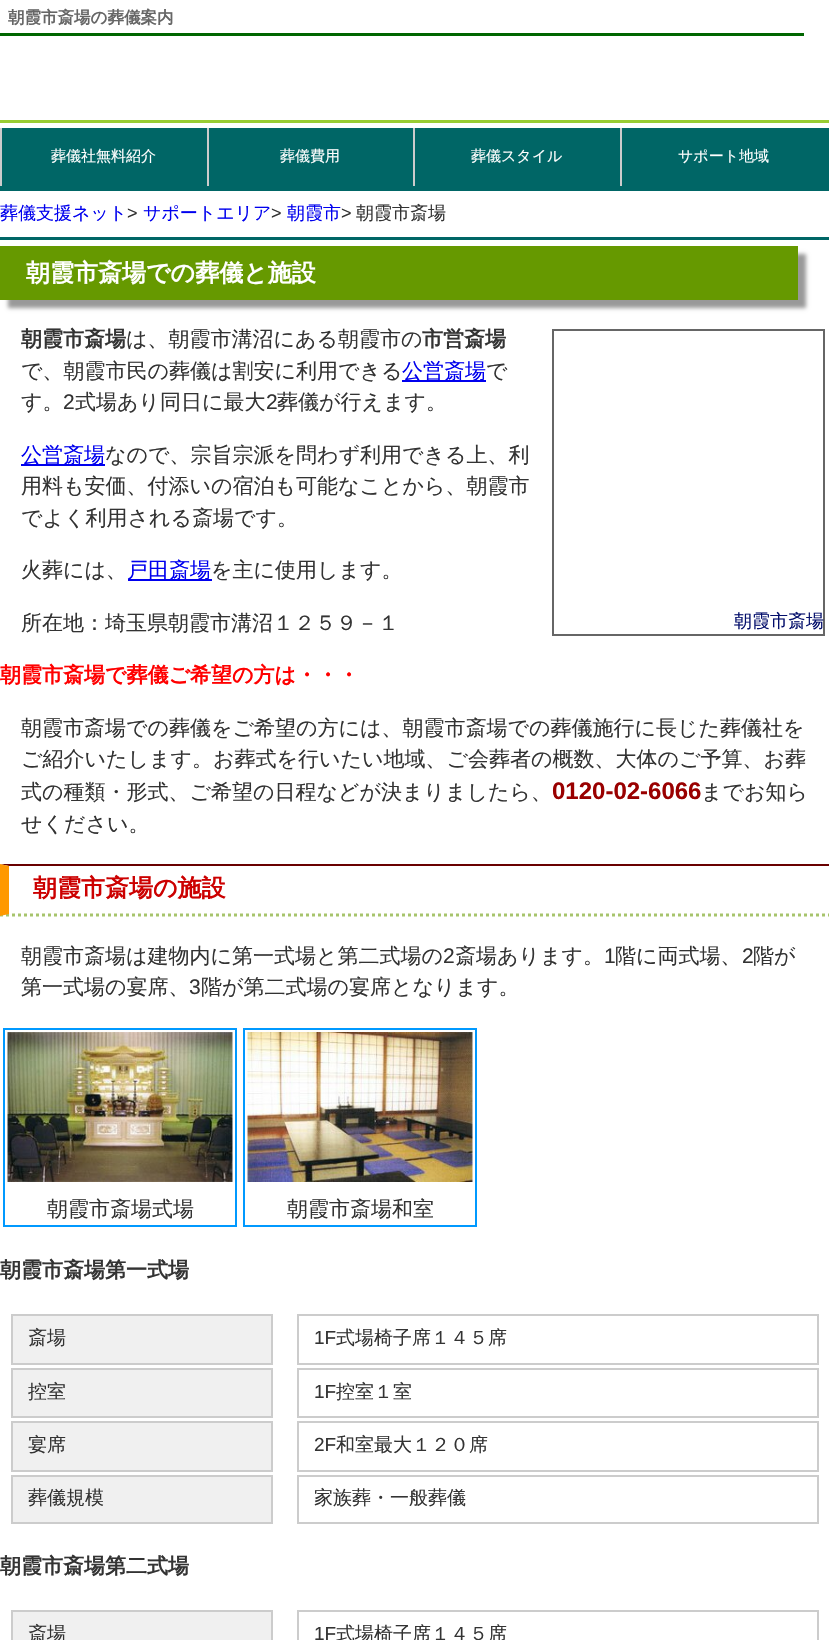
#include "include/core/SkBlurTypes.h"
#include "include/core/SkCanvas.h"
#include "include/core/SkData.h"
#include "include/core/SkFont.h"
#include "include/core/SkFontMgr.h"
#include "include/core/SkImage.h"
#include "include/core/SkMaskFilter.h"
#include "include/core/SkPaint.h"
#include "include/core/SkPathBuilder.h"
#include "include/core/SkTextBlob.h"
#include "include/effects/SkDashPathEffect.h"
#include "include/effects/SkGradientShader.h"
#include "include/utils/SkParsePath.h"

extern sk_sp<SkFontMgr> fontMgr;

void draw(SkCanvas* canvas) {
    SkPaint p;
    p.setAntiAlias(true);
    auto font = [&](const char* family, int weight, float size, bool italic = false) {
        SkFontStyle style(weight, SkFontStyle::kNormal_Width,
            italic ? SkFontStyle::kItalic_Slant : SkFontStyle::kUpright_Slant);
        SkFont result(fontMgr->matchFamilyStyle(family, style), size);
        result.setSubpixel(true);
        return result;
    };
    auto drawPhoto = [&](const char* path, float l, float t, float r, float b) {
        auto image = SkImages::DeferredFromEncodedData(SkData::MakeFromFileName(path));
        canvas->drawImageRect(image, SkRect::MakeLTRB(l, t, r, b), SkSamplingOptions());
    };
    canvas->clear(0xFFFFFFFF);
    p.setColor(0xFF006600);
    canvas->drawRect(SkRect::MakeLTRB(0, 33, 804, 36), p);
    auto font1 = font("WenQuanYi Zen Hei", 700, 16.5f);
    p.setColor(0xFF666666);
    canvas->drawString("朝霞市斎場の葬儀案内", 8, 23, font1, p);
    {
        const struct { float l, t, r, b; SkColor color; } items[] = {
            {0, 120, 829, 123, 0xFF99CC33},
            {0, 128, 829, 191, 0xFF006666},
            {0, 128, 2, 186, 0xFFCCCCCC},
        };
        for (auto [l, t, r, b, color] : items) {
            p.setColor(color);
            canvas->drawRect(SkRect::MakeLTRB(l, t, r, b), p);
        }
    }
    auto font2 = font("WenQuanYi Zen Hei", 500, 15);
    p.setColor(0xFFFFFFFF);
    canvas->drawString("葬儀社無料紹介", 51, 161, font2, p);
    p.setColor(0xFFCCCCCC);
    canvas->drawRect(SkRect::MakeLTRB(207, 128, 209, 186), p);
    p.setColor(0xFFFFFFFF);
    canvas->drawString("葬儀費用", 280, 161, font2, p);
    p.setColor(0xFFCCCCCC);
    canvas->drawRect(SkRect::MakeLTRB(413, 128, 415, 186), p);
    p.setColor(0xFFFFFFFF);
    canvas->drawString("葬儀スタイル", 471, 161, font2, p);
    p.setColor(0xFFCCCCCC);
    canvas->drawRect(SkRect::MakeLTRB(620, 128, 622, 186), p);
    p.setColor(0xFFFFFFFF);
    canvas->drawString("サポート地域", 678, 161, font2, p);
    auto font3 = font("WenQuanYi Zen Hei", 500, 18);
    p.setColor(0xFF0000EE);
    canvas->drawString("葬儀支援ネット", 0, 219, font3, p);
    auto font4 = font("Liberation Sans", 400, 18);
    p.setColor(0xFF333333);
    canvas->drawString(">", 127, 219, font4, p);
    p.setColor(0xFF0000EE);
    canvas->drawString("サポートエリア", 143, 219, font3, p);
    p.setColor(0xFF333333);
    canvas->drawString(">", 271, 219, font4, p);
    p.setColor(0xFF0000EE);
    canvas->drawString("朝霞市", 287, 219, font3, p);
    p.setColor(0xFF333333);
    canvas->drawString(">", 341, 219, font4, p);
    canvas->drawString("朝霞市斎場", 356, 219, font3, p);
    p.setColor(0xFF006666);
    canvas->drawRect(SkRect::MakeLTRB(0, 237, 829, 240), p);
    p.setColor(0xFF999999);
    p.setMaskFilter(SkMaskFilter::MakeBlur(kNormal_SkBlurStyle, 2));
    canvas->drawRect(SkRect::MakeLTRB(8, 254, 806, 308), p);
    p.setMaskFilter(nullptr);
    p.setColor(0xFF669900);
    canvas->drawRect(SkRect::MakeLTRB(0, 246, 798, 300), p);
    auto font5 = font("WenQuanYi Zen Hei", 700, 24);
    p.setColor(0xFFFFFFFF);
    canvas->drawString("朝霞市斎場での葬儀と施設", 26, 281, font5, p);
    auto font6 = font("WenQuanYi Zen Hei", 700, 21);
    p.setColor(0xFF333333);
    canvas->drawString("朝霞市斎場", 21, 346, font6, p);
    auto font7 = font("WenQuanYi Zen Hei", 500, 21);
    canvas->drawString("は、朝霞市溝沼にある朝霞市の", 126, 346, font7, p);
    canvas->drawString("市営斎場", 422, 346, font6, p);
    canvas->drawString("で、朝霞市民の葬儀は割安に利用できる", 21, 378, font7, p);
    p.setColor(0xFF0000EE);
    canvas->drawRect(SkRect::MakeLTRB(402, 380, 486, 382), p);
    canvas->drawString("公営斎場", 402, 378, font7, p);
    p.setColor(0xFF333333);
    canvas->drawString("で", 486, 378, font7, p);
    canvas->drawString("す。", 21, 409, font7, p);
    auto font8 = font("Liberation Sans", 400, 21);
    canvas->drawString("2", 63, 409, font8, p);
    canvas->drawString("式場あり同日に最大", 75, 409, font7, p);
    canvas->drawString("2", 266, 409, font8, p);
    canvas->drawString("葬儀が行えます。", 277, 409, font7, p);
    p.setColor(0xFF0000EE);
    canvas->drawRect(SkRect::MakeLTRB(21, 464, 105, 466), p);
    canvas->drawString("公営斎場", 21, 462, font7, p);
    p.setColor(0xFF333333);
    {
        const struct { const char* s; float x, y; } items[] = {
            {"なので、宗旨宗派を問わず利用できる上、利", 105, 462},
            {"用料も安価、付添いの宿泊も可能なことから、朝霞市", 21, 493},
            {"でよく利用される斎場です。", 21, 525},
            {"火葬には、", 21, 577},
        };
        for (auto [s, x, y] : items) {
            canvas->drawString(s, x, y, font7, p);
        }
    }
    p.setColor(0xFF0000EE);
    canvas->drawRect(SkRect::MakeLTRB(128, 579, 212, 581), p);
    canvas->drawString("戸田斎場", 127, 577, font7, p);
    p.setColor(0xFF333333);
    canvas->drawString("を主に使用します。", 211, 577, font7, p);
    canvas->drawString("所在地：埼玉県朝霞市溝沼１２５９－１", 21, 630, font7, p);
    p.setStyle(SkPaint::kStroke_Style);
    p.setStrokeWidth(2);
    p.setColor(0xFF666666);
    canvas->drawRect(SkRect::MakeLTRB(553, 330, 824, 635), p);
    p.setStyle(SkPaint::kFill_Style);
    p.setColor(0xFF030E6B);
    canvas->drawString("朝霞市斎場", 734, 627, font3, p);
    p.setColor(0xFFFF0000);
    canvas->drawString("朝霞市斎場で葬儀ご希望の方は・・・", 0, 682, font6, p);
    p.setColor(0xFF333333);
    {
        const struct { const char* s; float x, y; } items[] = {
            {"朝霞市斎場での葬儀をご希望の方には、朝霞市斎場での葬儀施行に長じた葬儀社を", 21, 735},
            {"ご紹介いたします。お葬式を行いたい地域、ご会葬者の概数、大体のご予算、お葬", 21, 766},
            {"式の種類・形式、ご希望の日程などが決まりましたら、", 21, 799},
        };
        for (auto [s, x, y] : items) {
            canvas->drawString(s, x, y, font7, p);
        }
    }
    auto font9 = font("Liberation Sans", 700, 24);
    p.setColor(0xFF990000);
    canvas->drawString("0120-02-6066", 552, 799, font9, p);
    p.setColor(0xFF333333);
    canvas->drawString("までお知ら", 701, 799, font7, p);
    canvas->drawString("せください。", 21, 831, font7, p);
    p.setColor(0xFF690000);
    canvas->drawPath(SkPathBuilder().moveTo(0, 864).lineTo(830, 864).lineTo(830, 866).lineTo(9, 866).close().detach(), p);
    p.setStyle(SkPaint::kStroke_Style);
    p.setStrokeWidth(3);
    p.setColor(0xFFA7C46C);
    p.setPathEffect(SkDashPathEffect::Make({{3, 3}}, 0));
    canvas->drawPath(SkPathBuilder().moveTo(0, 915).lineTo(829.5f, 915).detach(), p);
    p.setPathEffect(nullptr);
    p.setStyle(SkPaint::kFill_Style);
    p.setColor(0xFFFF9900);
    canvas->drawPath(SkPathBuilder().moveTo(0, 916).lineTo(0, 864).lineTo(9, 866).lineTo(9, 914).close().detach(), p);
    p.setColor(0xFFCC0000);
    canvas->drawString("朝霞市斎場の施設", 33, 896, font5, p);
    p.setColor(0xFF333333);
    canvas->drawString("朝霞市斎場は建物内に第一式場と第二式場の", 21, 963, font7, p);
    canvas->drawString("2", 443, 963, font8, p);
    canvas->drawString("斎場あります。", 455, 963, font7, p);
    canvas->drawString("1", 604, 963, font8, p);
    canvas->drawString("階に両式場、", 615, 963, font7, p);
    canvas->drawString("2", 742, 963, font8, p);
    canvas->drawString("階が", 753, 963, font7, p);
    canvas->drawString("第一式場の宴席、", 21, 994, font7, p);
    canvas->drawString("3", 189, 994, font8, p);
    canvas->drawString("階が第二式場の宴席となります。", 201, 994, font7, p);
    p.setStyle(SkPaint::kStroke_Style);
    p.setStrokeWidth(2);
    p.setColor(0xFF0099FF);
    canvas->drawRect(SkRect::MakeLTRB(4, 1029, 236, 1226), p);
    drawPhoto("media/1.png", 7, 1032, 233, 1182);
    p.setStyle(SkPaint::kFill_Style);
    p.setColor(0xFF333333);
    canvas->drawString("朝霞市斎場式場", 47, 1216, font7, p);
    p.setStyle(SkPaint::kStroke_Style);
    p.setColor(0xFF0099FF);
    canvas->drawRect(SkRect::MakeLTRB(244, 1029, 476, 1226), p);
    drawPhoto("media/2.png", 247, 1032, 473, 1182);
    p.setStyle(SkPaint::kFill_Style);
    p.setColor(0xFF333333);
    canvas->drawString("朝霞市斎場和室", 287, 1216, font7, p);
    canvas->drawString("朝霞市斎場第一式場", 0, 1277, font6, p);
    p.setColor(0xFFF0F0F0);
    canvas->drawRect(SkRect::MakeLTRB(12, 1315, 272, 1364), p);
    p.setStyle(SkPaint::kStroke_Style);
    p.setColor(0xFFCCCCCC);
    canvas->drawRect(SkRect::MakeLTRB(12, 1315, 272, 1364), p);
    auto font10 = font("WenQuanYi Zen Hei", 500, 19);
    p.setStyle(SkPaint::kFill_Style);
    p.setColor(0xFF333333);
    canvas->drawString("斎場", 28, 1344, font10, p);
    p.setStyle(SkPaint::kStroke_Style);
    p.setColor(0xFFCCCCCC);
    canvas->drawRect(SkRect::MakeLTRB(298, 1315, 818, 1364), p);
    auto font11 = font("Liberation Sans", 400, 19);
    p.setStyle(SkPaint::kFill_Style);
    p.setColor(0xFF333333);
    canvas->drawString("1F", 314, 1344, font11, p);
    canvas->drawString("式場椅子席１４５席", 336, 1344, font10, p);
    p.setColor(0xFFF0F0F0);
    canvas->drawRect(SkRect::MakeLTRB(12, 1369, 272, 1417), p);
    p.setStyle(SkPaint::kStroke_Style);
    p.setColor(0xFFCCCCCC);
    canvas->drawRect(SkRect::MakeLTRB(12, 1369, 272, 1417), p);
    p.setStyle(SkPaint::kFill_Style);
    p.setColor(0xFF333333);
    canvas->drawString("控室", 28, 1398, font10, p);
    p.setStyle(SkPaint::kStroke_Style);
    p.setColor(0xFFCCCCCC);
    canvas->drawRect(SkRect::MakeLTRB(298, 1369, 818, 1417), p);
    p.setStyle(SkPaint::kFill_Style);
    p.setColor(0xFF333333);
    canvas->drawString("1F", 314, 1398, font11, p);
    canvas->drawString("控室１室", 336, 1398, font10, p);
    p.setColor(0xFFF0F0F0);
    canvas->drawRect(SkRect::MakeLTRB(12, 1422, 272, 1471), p);
    p.setStyle(SkPaint::kStroke_Style);
    p.setColor(0xFFCCCCCC);
    canvas->drawRect(SkRect::MakeLTRB(12, 1422, 272, 1471), p);
    p.setStyle(SkPaint::kFill_Style);
    p.setColor(0xFF333333);
    canvas->drawString("宴席", 28, 1451, font10, p);
    p.setStyle(SkPaint::kStroke_Style);
    p.setColor(0xFFCCCCCC);
    canvas->drawRect(SkRect::MakeLTRB(298, 1422, 818, 1471), p);
    p.setStyle(SkPaint::kFill_Style);
    p.setColor(0xFF333333);
    canvas->drawString("2F", 314, 1451, font11, p);
    canvas->drawString("和室最大１２０席", 336, 1451, font10, p);
    p.setColor(0xFFF0F0F0);
    canvas->drawRect(SkRect::MakeLTRB(12, 1476, 272, 1523), p);
    p.setStyle(SkPaint::kStroke_Style);
    p.setColor(0xFFCCCCCC);
    canvas->drawRect(SkRect::MakeLTRB(12, 1476, 272, 1523), p);
    p.setStyle(SkPaint::kFill_Style);
    p.setColor(0xFF333333);
    canvas->drawString("葬儀規模", 28, 1504, font10, p);
    p.setStyle(SkPaint::kStroke_Style);
    p.setColor(0xFFCCCCCC);
    canvas->drawRect(SkRect::MakeLTRB(298, 1476, 818, 1523), p);
    p.setStyle(SkPaint::kFill_Style);
    p.setColor(0xFF333333);
    canvas->drawString("家族葬・一般葬儀", 314, 1504, font10, p);
    canvas->drawString("朝霞市斎場第二式場", 0, 1573, font6, p);
    p.setColor(0xFFF0F0F0);
    canvas->drawRect(SkRect::MakeLTRB(12, 1611, 272, 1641), p);
    p.setStyle(SkPaint::kStroke_Style);
    p.setColor(0xFFCCCCCC);
    canvas->drawRect(SkRect::MakeLTRB(12, 1611, 272, 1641), p);
    p.setStyle(SkPaint::kFill_Style);
    p.setColor(0xFF333333);
    canvas->drawString("斎場", 28, 1640, font10, p);
    p.setStyle(SkPaint::kStroke_Style);
    p.setColor(0xFFCCCCCC);
    canvas->drawRect(SkRect::MakeLTRB(298, 1611, 818, 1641), p);
    p.setStyle(SkPaint::kFill_Style);
    p.setColor(0xFF333333);
    canvas->drawString("1F", 314, 1640, font11, p);
    canvas->drawString("式場椅子席１４５席", 336, 1640, font10, p);
}
